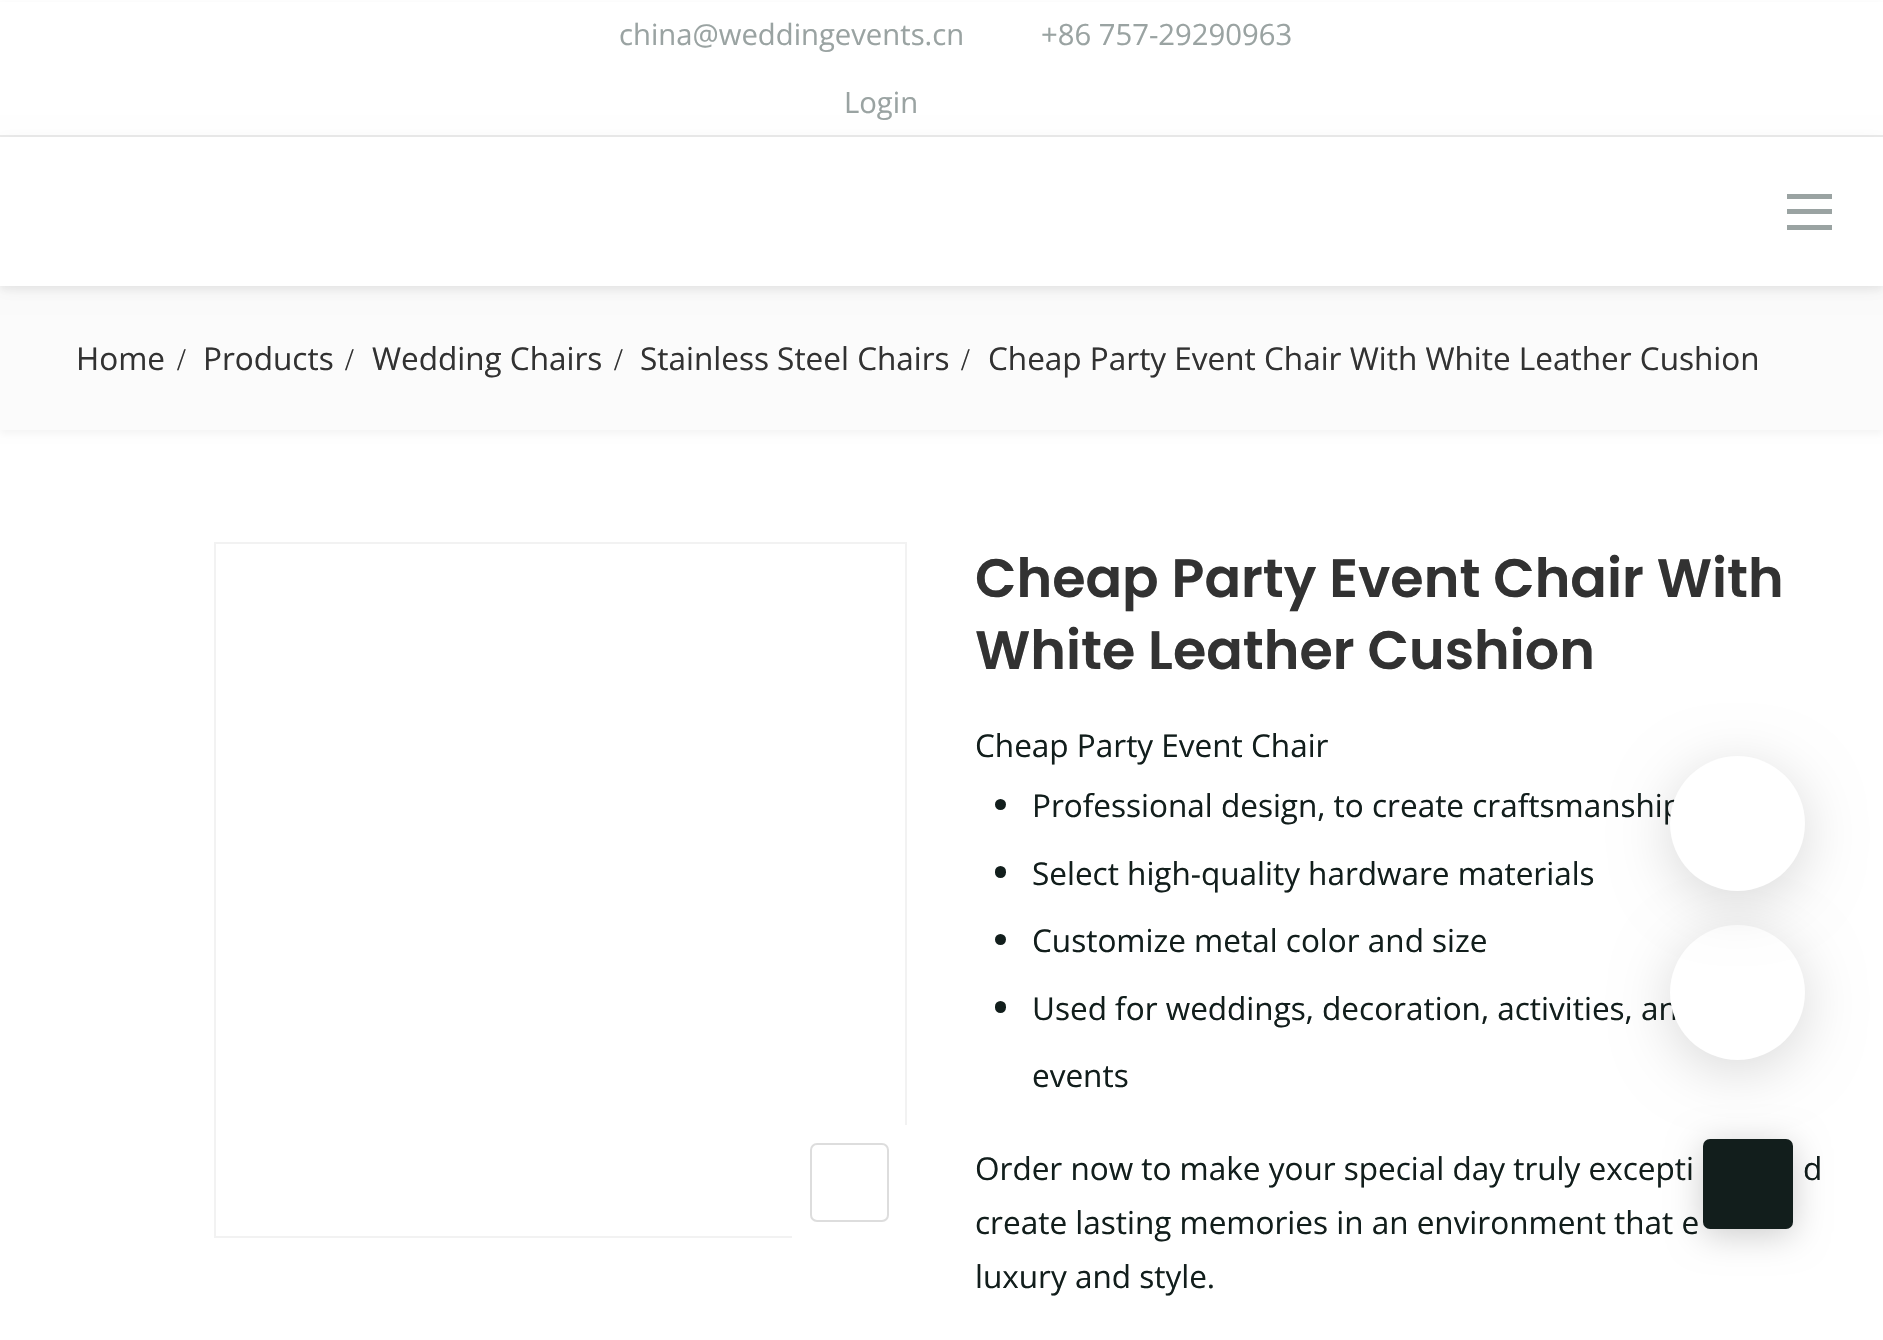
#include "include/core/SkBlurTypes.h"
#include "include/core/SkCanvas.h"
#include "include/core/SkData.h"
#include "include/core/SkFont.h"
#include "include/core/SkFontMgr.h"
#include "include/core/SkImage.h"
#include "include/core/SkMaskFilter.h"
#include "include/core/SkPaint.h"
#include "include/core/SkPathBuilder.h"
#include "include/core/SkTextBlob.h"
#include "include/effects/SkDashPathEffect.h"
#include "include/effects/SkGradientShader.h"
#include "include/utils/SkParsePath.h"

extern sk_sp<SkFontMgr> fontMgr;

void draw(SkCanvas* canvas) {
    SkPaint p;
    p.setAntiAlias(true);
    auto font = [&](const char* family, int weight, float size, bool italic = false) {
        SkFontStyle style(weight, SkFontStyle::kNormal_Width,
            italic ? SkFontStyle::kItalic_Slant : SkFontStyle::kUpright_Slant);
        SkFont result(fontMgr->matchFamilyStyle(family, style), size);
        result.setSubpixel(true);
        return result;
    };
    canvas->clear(0xFFFFFFFF);
    p.setColor(0x0A000000);
    p.setMaskFilter(SkMaskFilter::MakeBlur(kNormal_SkBlurStyle, 3.5f));
    canvas->drawRect(SkRect::MakeLTRB(0, 290, 1883, 434), p);
    p.setMaskFilter(nullptr);
    p.setColor(0xFFFBFBFB);
    canvas->drawRect(SkRect::MakeLTRB(0, 286, 1883, 430), p);
    p.setColor(0x0D000000);
    p.setMaskFilter(SkMaskFilter::MakeBlur(kNormal_SkBlurStyle, 3.5f));
    canvas->drawRect(SkRect::MakeLTRB(0, 5, 1883, 290), p);
    p.setMaskFilter(nullptr);
    p.setColor(0xFFFFFFFF);
    canvas->drawRect(SkRect::MakeLTRB(0, 2, 1883, 135), p);
    p.setColor(0xFFEBEBEB);
    canvas->drawRect(SkRect::MakeLTRB(0, 135, 1883, 137), p);
    auto font1 = font("Open Sans", 400, 29.25f);
    p.setColor(0xFF9AA3A2);
    canvas->drawString("china@weddingevents.cn", 619, 45, font1, p);
    canvas->drawString("+86 757-29290963", 1041, 45, font1, p);
    p.setColor(0x0D000000);
    p.setMaskFilter(SkMaskFilter::MakeBlur(kNormal_SkBlurStyle, 9));
    canvas->drawRect(SkRect::MakeLTRB(0, 142, 1883, 288), p);
    p.setMaskFilter(nullptr);
    p.setColor(0xFF9AA3A2);
    canvas->drawString("Login", 844, 113, font1, p);
    {
        const struct { float l, t, r, b; SkColor color; } items[] = {
            {0, 137, 1883, 286, 0xFFFFFFFF},
            {1787, 209, 1832, 214, 0xFF9AA3A2},
            {1787, 194, 1832, 199, 0xFF9AA3A2},
            {1787, 225, 1832, 230, 0xFF9AA3A2},
        };
        for (auto [l, t, r, b, color] : items) {
            p.setColor(color);
            canvas->drawRect(SkRect::MakeLTRB(l, t, r, b), p);
        }
    }
    auto font2 = font("Open Sans", 400, 31.5f);
    p.setColor(0xFF323232);
    canvas->drawString("Home", 76, 370, font2, p);
    auto font3 = font("Liberation Serif", 400, 31.5f);
    canvas->drawString("/", 177, 370, font3, p);
    canvas->drawString("Products", 203, 370, font2, p);
    canvas->drawString("/", 345, 370, font3, p);
    canvas->drawString("Wedding Chairs", 372, 370, font2, p);
    canvas->drawString("/", 614, 370, font3, p);
    canvas->drawString("Stainless Steel Chairs", 640, 370, font2, p);
    canvas->drawString("/", 961, 370, font3, p);
    canvas->drawString("Cheap Party Event Chair With White Leather Cushion", 988, 370, font2, p);
    p.setStyle(SkPaint::kStroke_Style);
    p.setStrokeWidth(2);
    p.setColor(0xFFF2F2F2);
    canvas->drawRect(SkRect::MakeLTRB(215, 543, 906, 1237), p);
    p.setStyle(SkPaint::kFill_Style);
    p.setColor(0xFFFFFFFF);
    canvas->drawPath(SkPathBuilder().moveTo(803, 1125).lineTo(907, 1125).lineTo(907, 1240).lineTo(792, 1240).lineTo(792, 1136).cubicTo(792, 1130, 797, 1125, 803, 1125).close().detach(), p);
    p.setStyle(SkPaint::kStroke_Style);
    p.setColor(0xFFDDDDDD);
    canvas->drawRoundRect(SkRect::MakeLTRB(811, 1144, 888, 1221), 6, 6, p);
    auto font4 = font("Poppins", 600, 54);
    p.setStyle(SkPaint::kFill_Style);
    p.setColor(0xFF323232);
    canvas->drawString("Cheap Party Event Chair With", 975, 597, font4, p);
    canvas->drawString("White Leather Cushion", 975, 669, font4, p);
    p.setColor(0xFF121E1C);
    canvas->drawString("Cheap Party Event Chair", 975, 757, font2, p);
    canvas->drawCircle(1000.5f, 804.5f, 5.5f, p);
    canvas->drawString("Professional design, to create craftsmanship", 1032, 817, font2, p);
    canvas->drawRoundRect(SkRect::MakeLTRB(995, 866, 1006, 878), 5.5f, 5.5f, p);
    canvas->drawString("Select high-quality hardware materials", 1032, 885, font2, p);
    canvas->drawCircle(1000.5f, 939.5f, 5.5f, p);
    canvas->drawString("Customize metal color and size", 1032, 952, font2, p);
    canvas->drawRoundRect(SkRect::MakeLTRB(995, 1001, 1006, 1013), 5.5f, 5.5f, p);
    {
        const struct { const char* s; float x, y; } items[] = {
            {"Used for weddings, decoration, activities, an", 1032, 1020},
            {"events", 1032, 1087},
            {"Order now to make your special day truly excepti", 975, 1180},
            {"d", 1803, 1180},
            {"create lasting memories in an environment that e", 975, 1234},
            {"luxury and style.", 975, 1288},
        };
        for (auto [s, x, y] : items) {
            canvas->drawString(s, x, y, font2, p);
        }
    }
    p.setColor(0x26000000);
    p.setMaskFilter(SkMaskFilter::MakeBlur(kNormal_SkBlurStyle, 28));
    canvas->drawRoundRect(SkRect::MakeLTRB(1670, 936, 1805, 1071), 67.5f, 67.5f, p);
    p.setMaskFilter(nullptr);
    p.setColor(0xFFFFFFFF);
    canvas->drawCircle(1737.5f, 992.5f, 67.5f, p);
    p.setColor(0x26000000);
    p.setMaskFilter(SkMaskFilter::MakeBlur(kNormal_SkBlurStyle, 28));
    canvas->drawRoundRect(SkRect::MakeLTRB(1670, 767, 1805, 902), 67.5f, 67.5f, p);
    p.setMaskFilter(nullptr);
    p.setColor(0xFFFFFFFF);
    canvas->drawCircle(1737.5f, 823.5f, 67.5f, p);
    p.setColor(0x33000000);
    p.setMaskFilter(SkMaskFilter::MakeBlur(kNormal_SkBlurStyle, 17));
    canvas->drawRoundRect(SkRect::MakeLTRB(1703, 1145, 1793, 1235), 7, 7, p);
    p.setMaskFilter(nullptr);
    p.setColor(0xFF121E1C);
    canvas->drawRoundRect(SkRect::MakeLTRB(1703, 1139, 1793, 1229), 7, 7, p);
}
